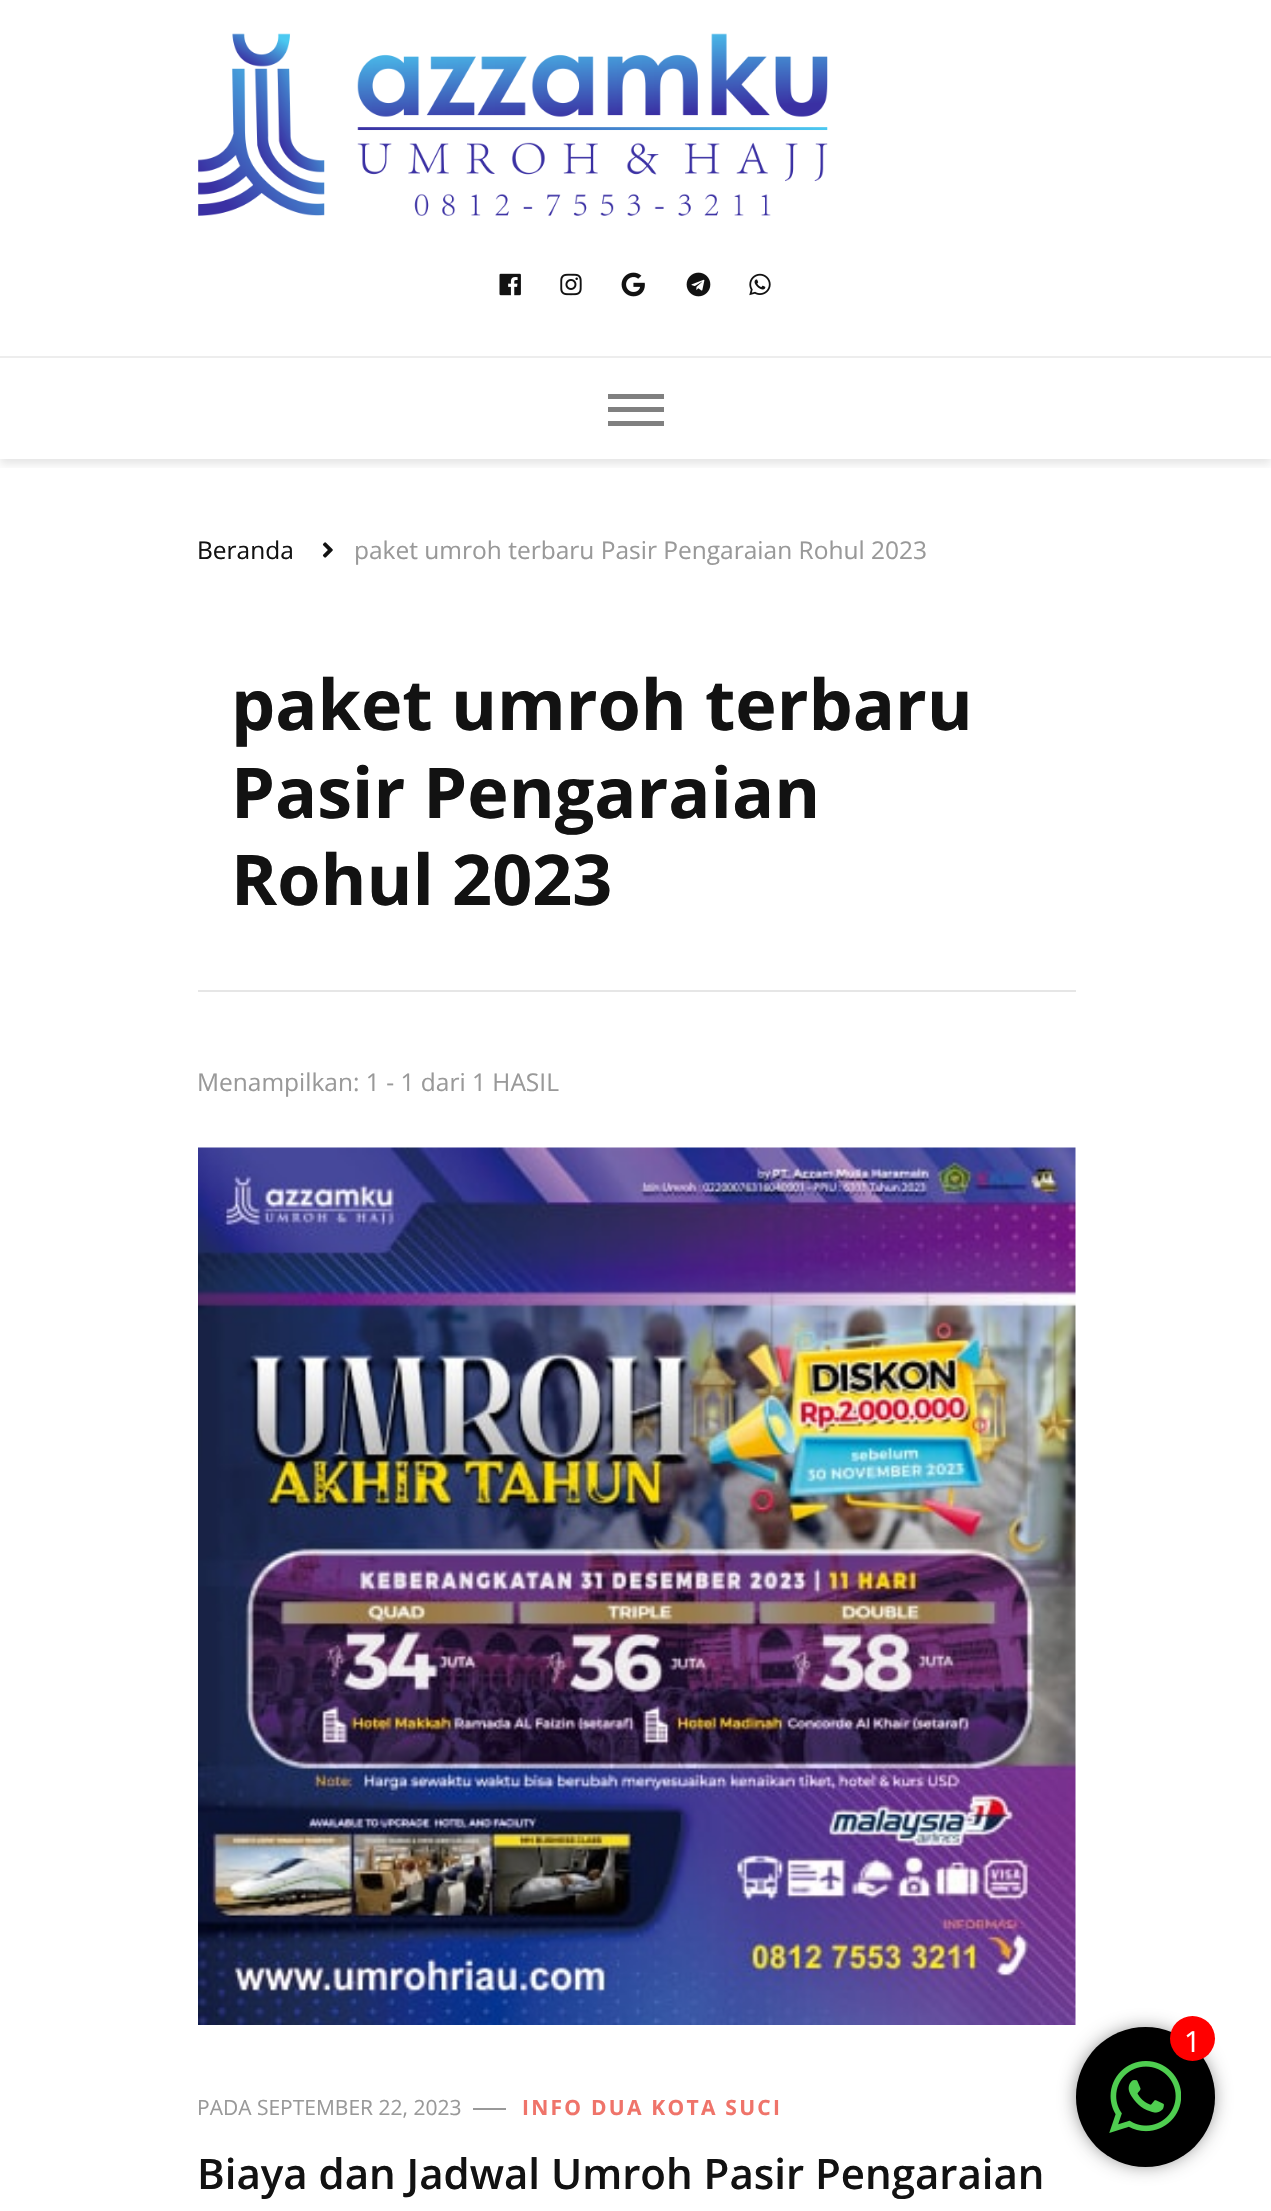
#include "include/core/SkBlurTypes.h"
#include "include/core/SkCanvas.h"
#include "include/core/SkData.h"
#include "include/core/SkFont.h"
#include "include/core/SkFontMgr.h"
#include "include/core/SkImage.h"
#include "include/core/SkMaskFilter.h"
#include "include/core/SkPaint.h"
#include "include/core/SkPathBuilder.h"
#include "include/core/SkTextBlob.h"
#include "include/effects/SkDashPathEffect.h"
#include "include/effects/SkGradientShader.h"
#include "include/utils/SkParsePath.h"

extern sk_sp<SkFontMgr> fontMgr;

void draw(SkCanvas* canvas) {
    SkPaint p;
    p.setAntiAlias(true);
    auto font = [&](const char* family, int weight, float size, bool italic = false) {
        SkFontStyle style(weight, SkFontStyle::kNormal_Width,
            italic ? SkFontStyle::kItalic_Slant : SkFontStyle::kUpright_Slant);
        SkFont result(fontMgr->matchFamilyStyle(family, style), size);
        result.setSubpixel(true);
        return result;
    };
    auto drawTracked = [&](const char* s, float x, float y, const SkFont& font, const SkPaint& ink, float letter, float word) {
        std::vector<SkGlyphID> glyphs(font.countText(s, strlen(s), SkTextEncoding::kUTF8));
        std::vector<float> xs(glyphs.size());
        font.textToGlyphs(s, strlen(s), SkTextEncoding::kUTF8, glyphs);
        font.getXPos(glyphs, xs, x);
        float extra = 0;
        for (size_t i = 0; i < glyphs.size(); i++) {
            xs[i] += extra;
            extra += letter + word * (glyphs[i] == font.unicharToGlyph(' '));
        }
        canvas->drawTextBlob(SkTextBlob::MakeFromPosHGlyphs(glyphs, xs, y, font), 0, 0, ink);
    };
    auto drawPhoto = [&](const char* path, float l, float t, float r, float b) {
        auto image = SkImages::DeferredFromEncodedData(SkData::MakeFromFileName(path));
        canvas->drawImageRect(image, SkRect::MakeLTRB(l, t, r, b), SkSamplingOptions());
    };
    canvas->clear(0xFFFFFFFF);
    canvas->save();
    canvas->clipRect(SkRect::MakeLTRB(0, 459, 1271, 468));
    p.setColor(0x1A000000);
    p.setMaskFilter(SkMaskFilter::MakeBlur(kNormal_SkBlurStyle, 4.5f));
    canvas->drawRect(SkRect::MakeLTRB(0, 5, 1271, 464), p);
    p.setMaskFilter(nullptr);
    canvas->restore();
    drawPhoto("media/1.png", 198, 33, 828, 216);
    drawPhoto("media/2.png", 499, 273, 521, 296);
    drawPhoto("media/3.png", 560, 273, 582, 296);
    drawPhoto("media/4.png", 621, 272, 645, 297);
    drawPhoto("media/5.png", 686, 272, 711, 297);
    drawPhoto("media/6.png", 749, 273, 771, 296);
    {
        const struct { float l, t, r, b; SkColor color; } items[] = {
            {0, 356, 1271, 358, 0xFFEDEDED},
            {608, 394, 664, 399, 0xFF808080},
            {608, 407, 664, 412, 0xFF808080},
            {608, 421, 664, 426, 0xFF808080},
        };
        for (auto [l, t, r, b, color] : items) {
            p.setColor(color);
            canvas->drawRect(SkRect::MakeLTRB(l, t, r, b), p);
        }
    }
    auto font1 = font("Open Sans", 400, 24.5f);
    p.setColor(0xFF121212);
    canvas->drawString("Beranda", 197, 559, font1, p);
    drawPhoto("media/7.png", 322, 542, 333, 558);
    p.setColor(0xFF999999);
    canvas->drawString("paket umroh terbaru Pasir Pengaraian Rohul 2023", 354, 559, font1, p);
    p.setColor(0xFFE6E6E6);
    canvas->drawRect(SkRect::MakeLTRB(198, 990, 1076, 992), p);
    auto font2 = font("Open Sans", 700, 70);
    p.setColor(0xFF121212);
    {
        const struct { const char* s; float x, y; } items[] = {
            {"paket umroh terbaru", 231, 730},
            {"Pasir Pengaraian", 231, 818},
            {"Rohul 2023", 231, 905},
        };
        for (auto [s, x, y] : items) {
            canvas->drawString(s, x, y, font2, p);
        }
    }
    p.setColor(0xFF999999);
    canvas->drawString("Menampilkan: 1 - 1 dari 1 HASIL", 197, 1091, font1, p);
    drawPhoto("media/8.png", 198, 1147, 1076, 2025);
    auto font3 = font("Open Sans", 400, 21);
    canvas->drawString("PADA SEPTEMBER 22, 2023", 197, 2115, font3, p);
    canvas->drawRect(SkRect::MakeLTRB(473, 2108, 506, 2110), p);
    auto font4 = font("Open Sans", 700, 21);
    p.setColor(0xFFEF746A);
    drawTracked("INFO DUA KOTA SUCI", 522, 2115, font4, p, 2.25f, 0);
    auto font5 = font("Open Sans", 600, 42);
    p.setColor(0xFF121212);
    canvas->drawString("Biaya dan Jadwal Umroh Pasir Pengaraian", 197, 2189, font5, p);
    p.setColor(0xFF333333);
    p.setMaskFilter(SkMaskFilter::MakeBlur(kNormal_SkBlurStyle, 11));
    canvas->drawRoundRect(SkRect::MakeLTRB(1082, 2034, 1208, 2160), 63, 63, p);
    p.setMaskFilter(nullptr);
    p.setColor(0xFF000000);
    canvas->drawRoundRect(SkRect::MakeLTRB(1076, 2027, 1215, 2167), 69.5f, 69.5f, p);
    p.setColor(0xFFFF0000);
    canvas->drawCircle(1192.5f, 2038.5f, 22.5f, p);
    auto font6 = font("Open Sans", 400, 29);
    p.setColor(0xFFFFFFFF);
    canvas->drawString("1", 1184, 2052, font6, p);
    drawPhoto("media/9.png", 1109, 2061, 1181, 2133);
}
